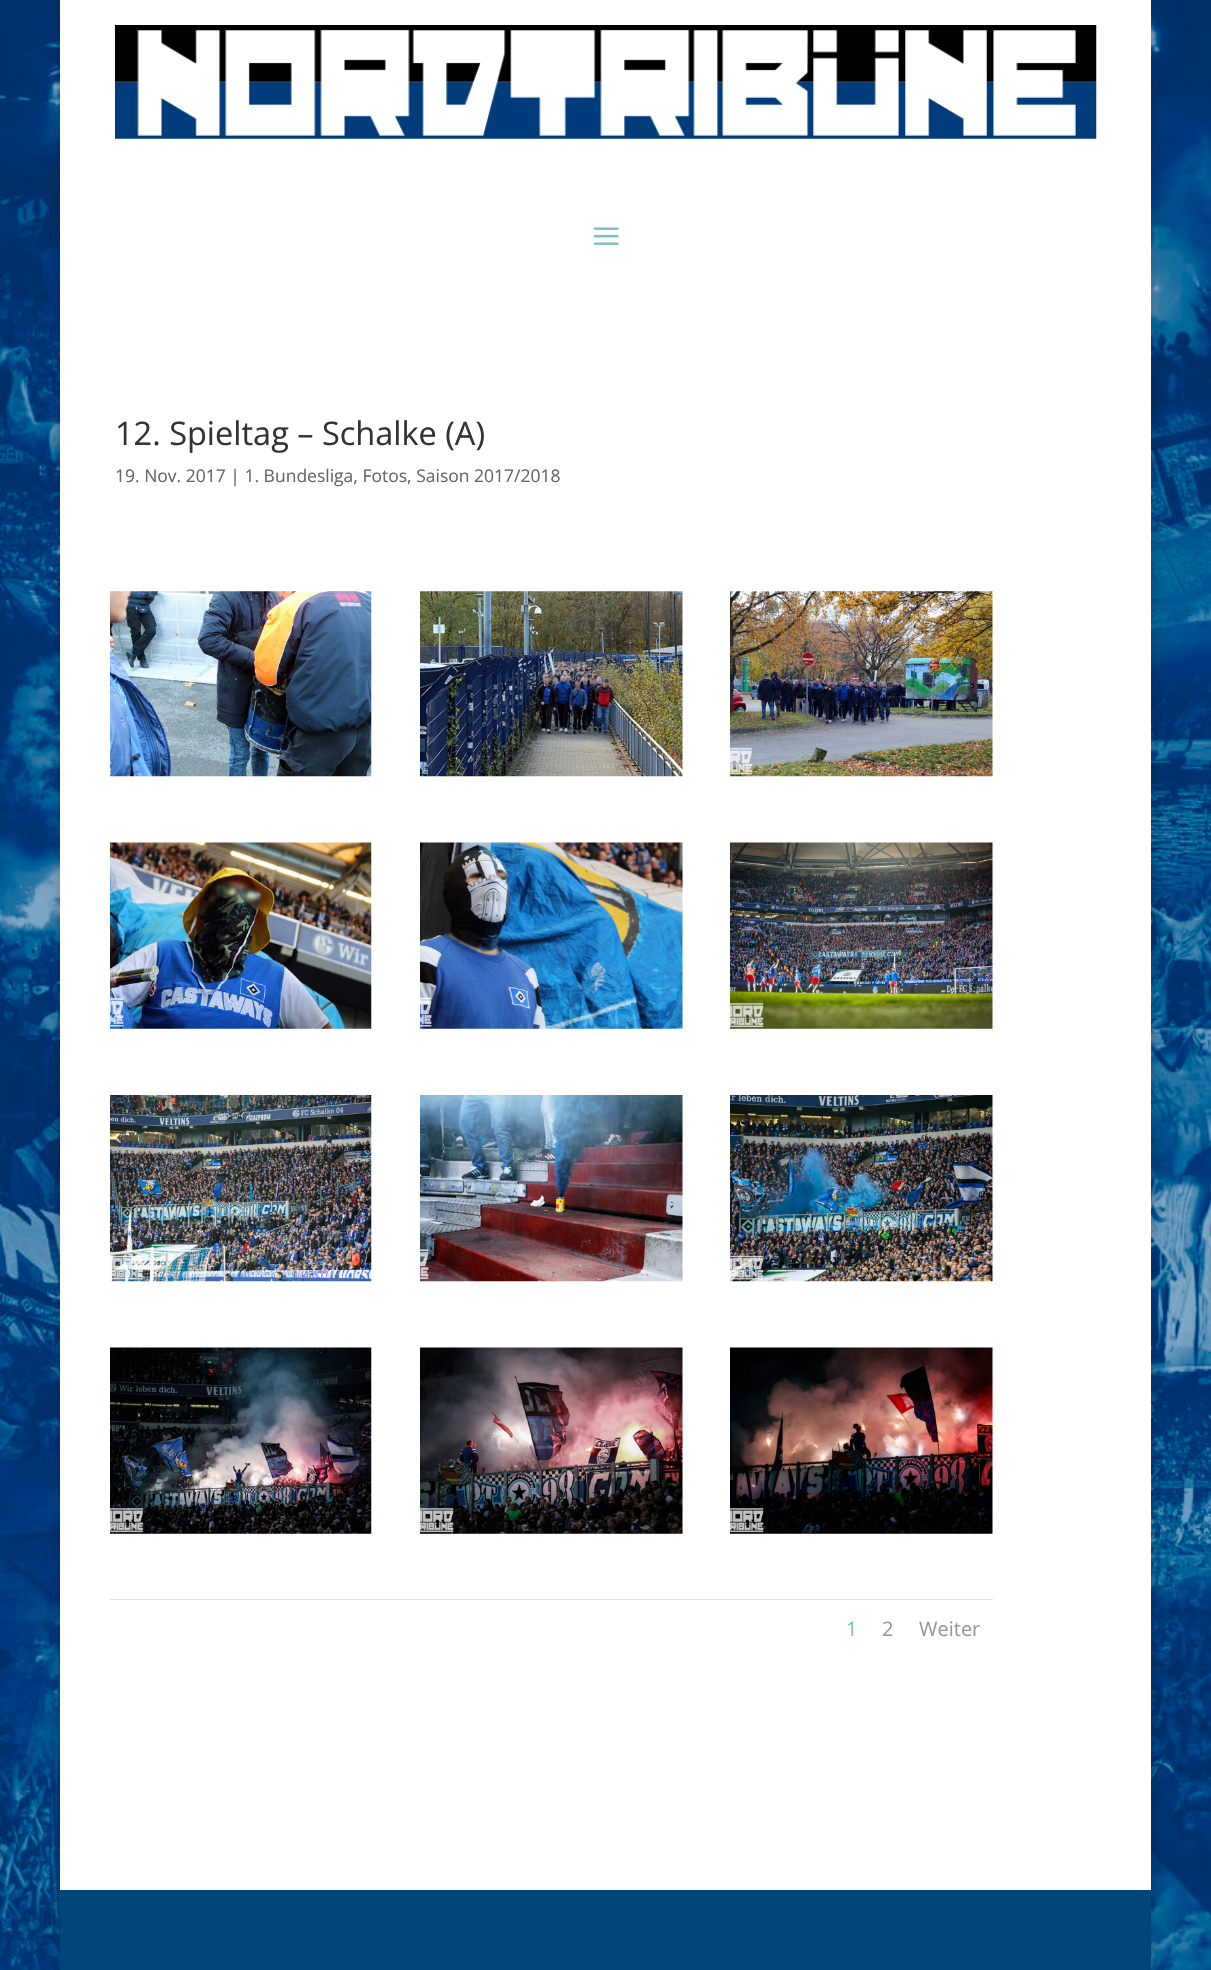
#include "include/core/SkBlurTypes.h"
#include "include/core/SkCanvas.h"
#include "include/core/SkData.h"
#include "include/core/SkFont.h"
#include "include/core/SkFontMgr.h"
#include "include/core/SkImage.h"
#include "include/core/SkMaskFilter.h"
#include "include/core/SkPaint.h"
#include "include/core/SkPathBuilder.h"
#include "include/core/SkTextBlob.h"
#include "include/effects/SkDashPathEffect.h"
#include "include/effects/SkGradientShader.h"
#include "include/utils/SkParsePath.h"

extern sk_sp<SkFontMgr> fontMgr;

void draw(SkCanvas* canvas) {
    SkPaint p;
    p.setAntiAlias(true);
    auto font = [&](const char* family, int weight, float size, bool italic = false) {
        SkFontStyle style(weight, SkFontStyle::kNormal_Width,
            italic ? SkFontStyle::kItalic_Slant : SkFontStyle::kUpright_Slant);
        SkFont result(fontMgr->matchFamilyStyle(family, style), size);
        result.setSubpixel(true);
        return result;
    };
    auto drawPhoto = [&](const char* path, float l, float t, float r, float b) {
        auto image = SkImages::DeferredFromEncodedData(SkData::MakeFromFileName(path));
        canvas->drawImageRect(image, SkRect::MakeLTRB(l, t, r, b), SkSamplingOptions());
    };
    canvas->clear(0xFFFFFFFF);
    drawPhoto("media/1.png", 0, 0, 1211, 1970);
    p.setColor(0x33000000);
    p.setMaskFilter(SkMaskFilter::MakeBlur(kNormal_SkBlurStyle, 6));
    canvas->drawRect(SkRect::MakeLTRB(60, 0, 1151, 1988), p);
    p.setMaskFilter(nullptr);
    p.setColor(0xFFFFFFFF);
    canvas->drawRect(SkRect::MakeLTRB(60, 0, 1151, 1890), p);
    drawPhoto("media/2.png", 115, 25, 1097, 139);
    drawPhoto("media/3.png", 593, 227, 619, 245);
    auto font1 = font("Open Sans", 400, 32.5f);
    p.setColor(0xFF333333);
    canvas->drawString("12. Spieltag – Schalke (A)", 115, 445, font1, p);
    auto font2 = font("Open Sans", 400, 17.5f);
    p.setColor(0xFF666666);
    canvas->drawString("19. Nov. 2017 | 1. Bundesliga, Fotos, Saison 2017/2018", 115, 482, font2, p);
    drawPhoto("media/4.png", 110, 591, 372, 777);
    drawPhoto("media/5.png", 420, 591, 683, 777);
    drawPhoto("media/6.png", 730, 591, 993, 777);
    drawPhoto("media/7.png", 110, 842, 372, 1029);
    drawPhoto("media/8.png", 420, 842, 683, 1029);
    drawPhoto("media/9.png", 730, 842, 993, 1029);
    drawPhoto("media/10.png", 110, 1095, 372, 1282);
    drawPhoto("media/11.png", 420, 1095, 683, 1282);
    drawPhoto("media/12.png", 730, 1095, 993, 1282);
    drawPhoto("media/13.png", 110, 1347, 372, 1534);
    drawPhoto("media/14.png", 420, 1347, 683, 1534);
    drawPhoto("media/15.png", 730, 1347, 993, 1534);
    p.setColor(0xFFE2E2E2);
    canvas->drawRect(SkRect::MakeLTRB(110, 1599, 993, 1600), p);
    auto font3 = font("Open Sans", 400, 20);
    p.setColor(0xFF82C0C7);
    canvas->drawString("1", 846, 1636, font3, p);
    p.setColor(0xFF999999);
    canvas->drawString("2", 882, 1636, font3, p);
    canvas->drawString("Weiter", 919, 1636, font3, p);
    p.setColor(0xFF00457A);
    canvas->drawRect(SkRect::MakeLTRB(60, 1890, 1151, 1970), p);
}
